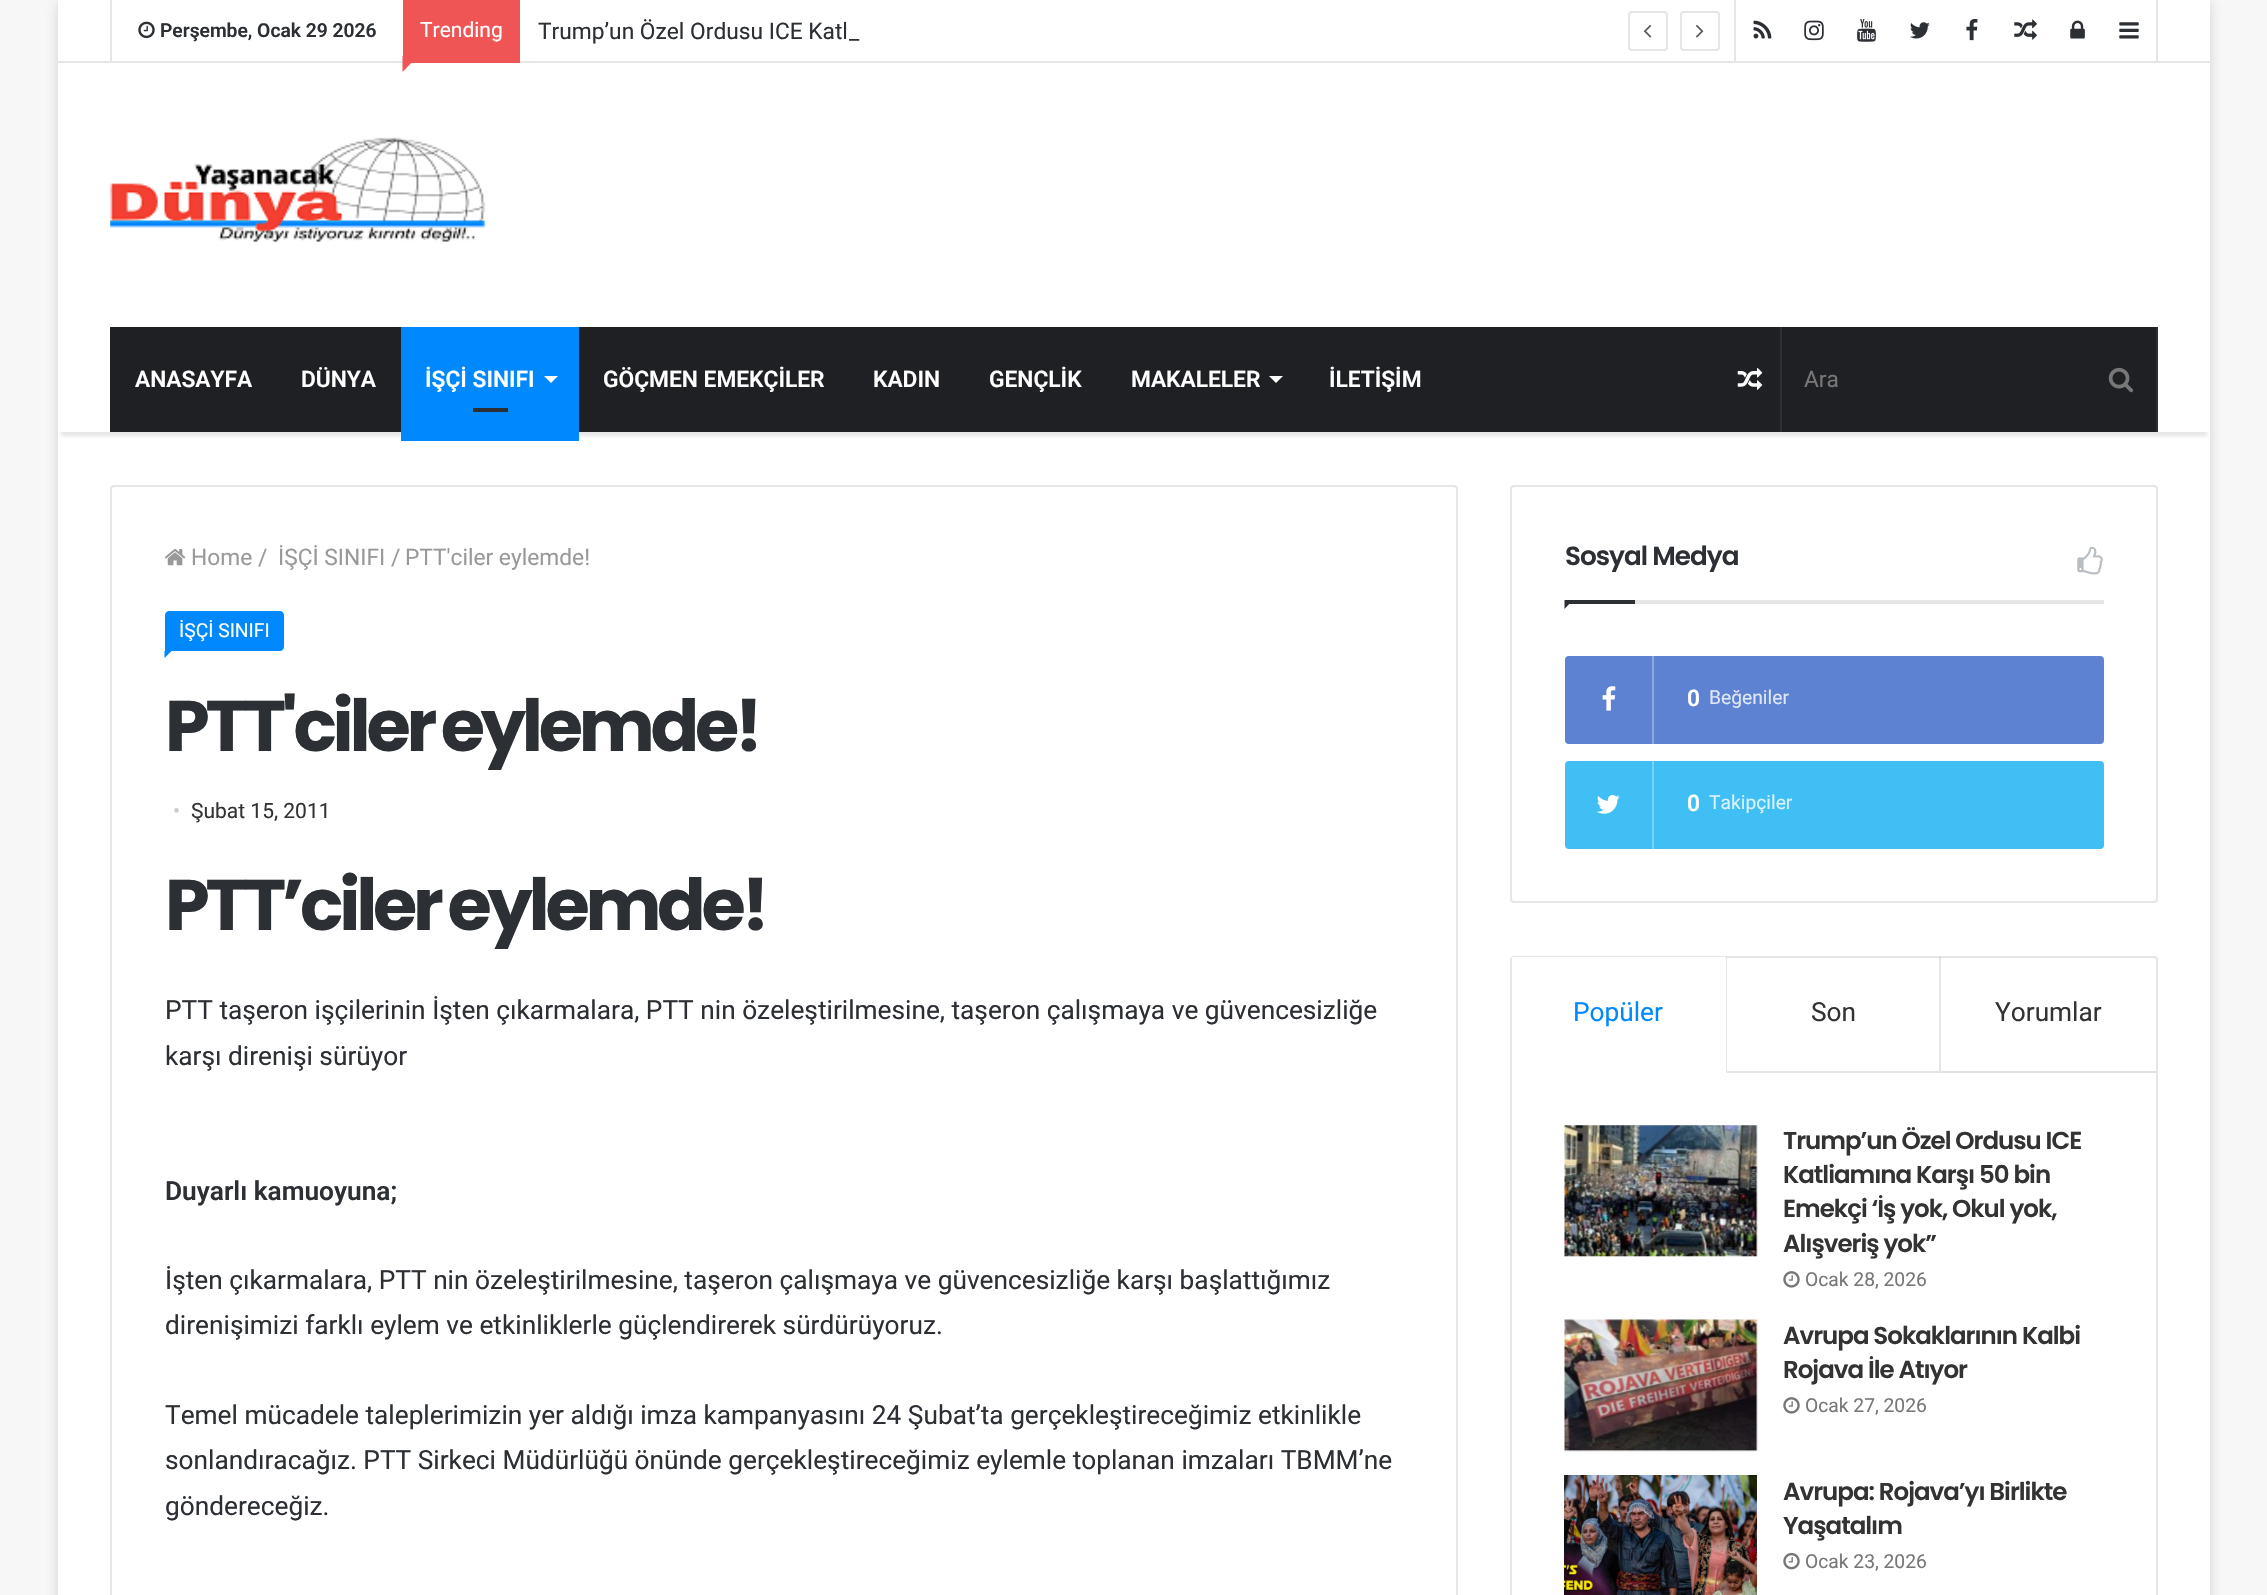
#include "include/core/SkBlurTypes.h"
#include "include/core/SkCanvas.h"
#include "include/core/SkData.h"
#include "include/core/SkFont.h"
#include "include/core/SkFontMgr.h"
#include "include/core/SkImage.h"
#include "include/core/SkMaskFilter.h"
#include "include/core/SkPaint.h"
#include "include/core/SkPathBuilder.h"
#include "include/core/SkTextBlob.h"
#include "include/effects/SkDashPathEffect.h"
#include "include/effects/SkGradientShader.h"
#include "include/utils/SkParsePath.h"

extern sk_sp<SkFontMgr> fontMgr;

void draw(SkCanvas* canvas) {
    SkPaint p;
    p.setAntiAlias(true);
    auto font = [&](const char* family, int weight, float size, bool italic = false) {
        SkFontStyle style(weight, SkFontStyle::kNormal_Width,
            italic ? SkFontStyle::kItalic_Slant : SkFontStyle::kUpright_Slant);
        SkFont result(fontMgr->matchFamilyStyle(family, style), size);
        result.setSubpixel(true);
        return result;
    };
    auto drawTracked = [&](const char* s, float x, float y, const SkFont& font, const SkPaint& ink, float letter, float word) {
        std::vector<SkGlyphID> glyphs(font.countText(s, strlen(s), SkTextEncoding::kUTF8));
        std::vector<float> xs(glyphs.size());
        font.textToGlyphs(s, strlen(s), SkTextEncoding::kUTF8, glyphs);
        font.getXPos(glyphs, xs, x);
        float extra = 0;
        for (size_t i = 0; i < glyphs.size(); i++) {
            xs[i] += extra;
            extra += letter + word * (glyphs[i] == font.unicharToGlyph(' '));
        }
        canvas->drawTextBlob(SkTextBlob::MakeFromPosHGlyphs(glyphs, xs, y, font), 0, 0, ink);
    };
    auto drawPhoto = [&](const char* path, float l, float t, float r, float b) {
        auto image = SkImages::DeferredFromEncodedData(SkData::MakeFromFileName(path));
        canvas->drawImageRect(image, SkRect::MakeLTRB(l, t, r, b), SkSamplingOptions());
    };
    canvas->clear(0xFFF7F7F7);
    p.setColor(0x80ABABAB);
    p.setMaskFilter(SkMaskFilter::MakeBlur(kNormal_SkBlurStyle, 6));
    canvas->drawRect(SkRect::MakeLTRB(58, 2, 2210, 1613), p);
    p.setMaskFilter(nullptr);
    p.setColor(0xFFFFFFFF);
    canvas->drawRect(SkRect::MakeLTRB(58, 0, 2210, 1595), p);
    canvas->save();
    canvas->clipRect(SkRect::MakeLTRB(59, 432, 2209, 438));
    p.setColor(0x1A000000);
    p.setMaskFilter(SkMaskFilter::MakeBlur(kNormal_SkBlurStyle, 2));
    canvas->drawRect(SkRect::MakeLTRB(61, 11, 2207, 436), p);
    p.setMaskFilter(nullptr);
    canvas->restore();
    p.setColor(0xFFE6E6E6);
    canvas->drawRect(SkRect::MakeLTRB(58, 61, 2210, 63), p);
    canvas->drawRect(SkRect::MakeLTRB(110, 0, 112, 61), p);
    drawPhoto("media/1.png", 138, 21, 155, 39);
    auto font1 = font("Roboto", 600, 19.25f);
    p.setColor(0xFF2C2F34);
    canvas->drawString("Perşembe, Ocak 29 2026", 160, 37, font1, p);
    p.setColor(0xFFE6E6E6);
    canvas->drawRect(SkRect::MakeLTRB(1734, 0, 1736, 61), p);
    p.setColor(0xFFF05555);
    canvas->drawRect(SkRect::MakeLTRB(403, 0, 520, 63), p);
    auto font2 = font("Roboto", 400, 21);
    p.setColor(0xFFFFFFFF);
    canvas->drawString("Trending", 420, 37, font2, p);
    p.setColor(0xFFF05555);
    canvas->drawPath(SkPathBuilder().moveTo(402.5f, 56).lineTo(418, 56).lineTo(402.5f, 72).close().detach(), p);
    auto font3 = font("Roboto", 400, 22.75f);
    p.setColor(0xFF2C2F34);
    canvas->drawString("Trump’un Özel Ordusu ICE Katl", 538, 39, font3, p);
    canvas->drawString("_", 849, 39, font3, p);
    p.setStyle(SkPaint::kStroke_Style);
    p.setStrokeWidth(2);
    p.setColor(0xFFE6E6E6);
    canvas->drawRoundRect(SkRect::MakeLTRB(1629, 12, 1667, 50), 3, 3, p);
    drawPhoto("media/2.png", 1643, 24, 1652, 38);
    canvas->drawRoundRect(SkRect::MakeLTRB(1681, 12, 1719, 50), 3, 3, p);
    drawPhoto("media/3.png", 1696, 24, 1704, 38);
    drawPhoto("media/4.png", 1753, 20, 1772, 39);
    drawPhoto("media/5.png", 1804, 20, 1824, 41);
    drawPhoto("media/6.png", 1857, 19, 1876, 42);
    drawPhoto("media/7.png", 1910, 22, 1930, 39);
    drawPhoto("media/8.png", 1966, 19, 1978, 41);
    drawPhoto("media/9.png", 2014, 19, 2037, 40);
    drawPhoto("media/10.png", 2070, 20, 2085, 39);
    p.setStyle(SkPaint::kFill_Style);
    canvas->drawRect(SkRect::MakeLTRB(2156, 0, 2158, 61), p);
    drawPhoto("media/11.png", 2119, 22, 2139, 39);
    drawPhoto("media/12.png", 110, 137, 486, 242);
    p.setColor(0xFF1F2024);
    canvas->drawRect(SkRect::MakeLTRB(110, 327, 2156, 432), p);
    auto font4 = font("Roboto", 600, 22.75f);
    p.setColor(0xFFFFFFFF);
    canvas->drawString("ANASAYFA", 135, 387, font4, p);
    canvas->drawString("DÜNYA", 301, 387, font4, p);
    p.setColor(0xFF0088FF);
    canvas->drawRect(SkRect::MakeLTRB(401, 327, 579, 441), p);
    p.setColor(0xFFFFFFFF);
    canvas->drawString("İŞÇİ SINIFI", 425, 387, font4, p);
    canvas->drawPath(SkPathBuilder().moveTo(544, 376).lineTo(558, 376).lineTo(551, 383).close().detach(), p);
    p.setColor(0xFF2C2F34);
    canvas->drawRect(SkRect::MakeLTRB(473, 408, 508, 412), p);
    p.setColor(0xFFFFFFFF);
    {
        const struct { const char* s; float x, y; } items[] = {
            {"GÖÇMEN EMEKÇİLER", 603, 387},
            {"KADIN", 873, 387},
            {"GENÇLİK", 989, 387},
            {"MAKALELER", 1131, 387},
        };
        for (auto [s, x, y] : items) {
            canvas->drawString(s, x, y, font4, p);
        }
    }
    canvas->drawPath(SkPathBuilder().moveTo(1269, 376).lineTo(1283, 376).lineTo(1276, 383).close().detach(), p);
    canvas->drawString("İLETİŞİM", 1329, 387, font4, p);
    drawPhoto("media/13.png", 1737, 368, 1763, 390);
    p.setColor(0xFF2F3033);
    canvas->drawRect(SkRect::MakeLTRB(2156, 327, 2158, 432), p);
    canvas->drawRect(SkRect::MakeLTRB(1780, 327, 1782, 432), p);
    p.setColor(0xFF777777);
    canvas->drawString("Ara", 1804, 387, font3, p);
    drawPhoto("media/14.png", 2108, 367, 2134, 393);
    p.setStyle(SkPaint::kStroke_Style);
    p.setColor(0xFFE6E6E6);
    canvas->drawRoundRect(SkRect::MakeLTRB(111, 486, 1457, 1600), 3, 3, p);
    drawPhoto("media/15.png", 164, 549, 186, 566);
    p.setStyle(SkPaint::kFill_Style);
    p.setColor(0xFF999999);
    {
        const struct { const char* s; float x, y; } items[] = {
            {"Home", 191, 565},
            {"/", 258, 565},
            {"İŞÇİ SINIFI", 278, 565},
            {"/", 391, 565},
            {"PTT'ciler eylemde!", 405, 565},
        };
        for (auto [s, x, y] : items) {
            canvas->drawString(s, x, y, font3, p);
        }
    }
    p.setColor(0xFF0088FF);
    canvas->drawPath(SkPathBuilder().moveTo(169, 611).lineTo(280, 611).cubicTo(282, 611, 284, 613, 284, 615).lineTo(284, 647).cubicTo(284, 649, 282, 651, 280, 651).lineTo(165, 651).lineTo(165, 615).cubicTo(165, 613, 167, 611, 169, 611).close().detach(), p);
    auto font5 = font("Roboto", 400, 19.25f);
    p.setColor(0xFFFFFFFF);
    canvas->drawString("İŞÇİ SINIFI", 179, 637, font5, p);
    p.setColor(0xFF0088FF);
    canvas->drawPath(SkPathBuilder().moveTo(164.5f, 651).lineTo(171.5f, 651).lineTo(164.5f, 658).close().detach(), p);
    auto font6 = font("Poppins", 700, 71.75f);
    p.setColor(0xFF2C2F34);
    drawTracked("PTT'ciler eylemde!", 165, 751, font6, p, -4.25f, -3);
    p.setColor(0xFFCCCCCC);
    canvas->drawString("•", 173, 818, font2, p);
    p.setColor(0xFF333333);
    canvas->drawString("Şubat 15, 2011", 191, 818, font2, p);
    p.setColor(0xFF2C2F34);
    drawTracked("PTT’ciler eylemde!", 165, 930, font6, p, -4.25f, -3);
    auto font7 = font("Roboto", 400, 26.25f);
    canvas->drawString("PTT taşeron işçilerinin İşten çıkarmalara, PTT nin özeleştirilmesine, taşeron çalışmaya ve güvencesizliğe", 165, 1019, font7, p);
    canvas->drawString("karşı direnişi sürüyor", 165, 1065, font7, p);
    auto font8 = font("Roboto", 600, 26.25f);
    canvas->drawString("Duyarlı kamuoyuna;", 165, 1200, font8, p);
    {
        const struct { const char* s; float x, y; } items[] = {
            {"İşten çıkarmalara, PTT nin özeleştirilmesine, taşeron çalışmaya ve güvencesizliğe karşı başlattığımız", 165, 1289},
            {"direnişimizi farklı eylem ve etkinliklerle güçlendirerek sürdürüyoruz.", 165, 1334},
            {"Temel mücadele taleplerimizin yer aldığı imza kampanyasını 24 Şubat’ta gerçekleştireceğimiz etkinlikle", 165, 1424},
            {"sonlandıracağız. PTT Sirkeci Müdürlüğü önünde gerçekleştireceğimiz eylemle toplanan imzaları TBMM’ne", 165, 1469},
            {"göndereceğiz.", 165, 1515},
        };
        for (auto [s, x, y] : items) {
            canvas->drawString(s, x, y, font7, p);
        }
    }
    p.setStyle(SkPaint::kStroke_Style);
    p.setColor(0xFFE6E6E6);
    canvas->drawRoundRect(SkRect::MakeLTRB(1511, 486, 2157, 902), 3, 3, p);
    p.setStyle(SkPaint::kFill_Style);
    canvas->drawRect(SkRect::MakeLTRB(1635, 600, 2104, 604), p);
    auto font9 = font("Poppins", 600, 26.25f);
    p.setColor(0xFF2C2F34);
    drawTracked("Sosyal Medya", 1565, 565, font9, p, -1, 0);
    drawPhoto("media/16.png", 2077, 546, 2103, 575);
    canvas->drawPath(SkPathBuilder().moveTo(1564.5f, 600).lineTo(1573, 600).lineTo(1564.5f, 609).close().detach(), p);
    canvas->drawRect(SkRect::MakeLTRB(1565, 600, 1635, 604), p);
    p.setColor(0xFF5D82D1);
    canvas->drawRoundRect(SkRect::MakeLTRB(1565, 656, 2104, 744), 4, 4, p);
    p.setColor(0xFF8EA8DF);
    canvas->drawRect(SkRect::MakeLTRB(1652, 656, 1654, 744), p);
    drawPhoto("media/17.png", 1602, 686, 1616, 711);
    p.setColor(0xFFFFFFFF);
    canvas->drawString("0", 1687, 706, font4, p);
    p.setColor(0xFFDFE6F6);
    canvas->drawString("Beğeniler", 1709, 704, font5, p);
    p.setColor(0xFF40BFF5);
    canvas->drawRoundRect(SkRect::MakeLTRB(1565, 761, 2104, 849), 4, 4, p);
    p.setColor(0xFF79D2F8);
    canvas->drawRect(SkRect::MakeLTRB(1652, 761, 1654, 849), p);
    drawPhoto("media/18.png", 1596, 795, 1620, 814);
    p.setColor(0xFFFFFFFF);
    canvas->drawString("0", 1687, 811, font4, p);
    p.setColor(0xFFD9F2FD);
    canvas->drawString("Takipçiler", 1709, 809, font5, p);
    p.setStyle(SkPaint::kStroke_Style);
    p.setColor(0xFFE6E6E6);
    canvas->drawRoundRect(SkRect::MakeLTRB(1511, 957, 2157, 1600), 3, 3, p);
    p.setStyle(SkPaint::kFill_Style);
    p.setColor(0xFFFFFFFF);
    canvas->drawRect(SkRect::MakeLTRB(1512, 957, 1727, 960), p);
    p.setColor(0xFFE6E6E6);
    canvas->drawPath(SkPathBuilder().moveTo(1727, 957).lineTo(1727, 1073).lineTo(1726, 1071).lineTo(1726, 957).close().detach(), p);
    p.setColor(0xFF0088FF);
    canvas->drawString("Popüler", 1573, 1021, font7, p);
    p.setColor(0x1A000000);
    canvas->drawPath(SkPathBuilder().moveTo(1941, 957).lineTo(1941, 1073).lineTo(1939, 1071).lineTo(1939, 957).close().detach(), p);
    canvas->drawPath(SkPathBuilder().moveTo(1941, 1073).lineTo(1727, 1073).lineTo(1727, 1071).lineTo(1939, 1071).close().detach(), p);
    p.setColor(0xFF333333);
    canvas->drawString("Son", 1811, 1021, font7, p);
    p.setColor(0xFFE1E1E1);
    canvas->drawRect(SkRect::MakeLTRB(1941, 1071, 2156, 1073), p);
    p.setColor(0xFF333333);
    canvas->drawString("Yorumlar", 1995, 1021, font7, p);
    drawPhoto("media/19.png", 1564, 1125, 1758, 1257);
    auto font10 = font("Poppins", 600, 24.5f);
    {
        const struct { const char* s; float x, y; } items[] = {
            {"Trump’un Özel Ordusu ICE", 1783, 1149},
            {"Katliamına Karşı 50 bin", 1783, 1183},
            {"Emekçi ‘İş yok, Okul yok,", 1783, 1217},
            {"Alışveriş yok”", 1783, 1252},
        };
        for (auto [s, x, y] : items) {
            drawTracked(s, x, y, font10, p, -1, 0);
        }
    }
    drawPhoto("media/20.png", 1783, 1271, 1800, 1288);
    p.setColor(0xFF777777);
    canvas->drawString("Ocak 28, 2026", 1805, 1286, font5, p);
    drawPhoto("media/21.png", 1564, 1319, 1758, 1452);
    p.setColor(0xFF333333);
    drawTracked("Avrupa Sokaklarının Kalbi", 1783, 1344, font10, p, -1, 0);
    drawTracked("Rojava İle Atıyor", 1783, 1378, font10, p, -1, 0);
    drawPhoto("media/20.png", 1783, 1397, 1800, 1414);
    p.setColor(0xFF777777);
    canvas->drawString("Ocak 27, 2026", 1805, 1412, font5, p);
    drawPhoto("media/22.png", 1564, 1475, 1757, 1595);
    p.setColor(0xFF333333);
    drawTracked("Avrupa: Rojava’yı Birlikte", 1783, 1500, font10, p, -1, 0);
    drawTracked("Yaşatalım", 1783, 1534, font10, p, -1, 0);
    drawPhoto("media/23.png", 1783, 1552, 1800, 1570);
    p.setColor(0xFF777777);
    canvas->drawString("Ocak 23, 2026", 1805, 1568, font5, p);
}
